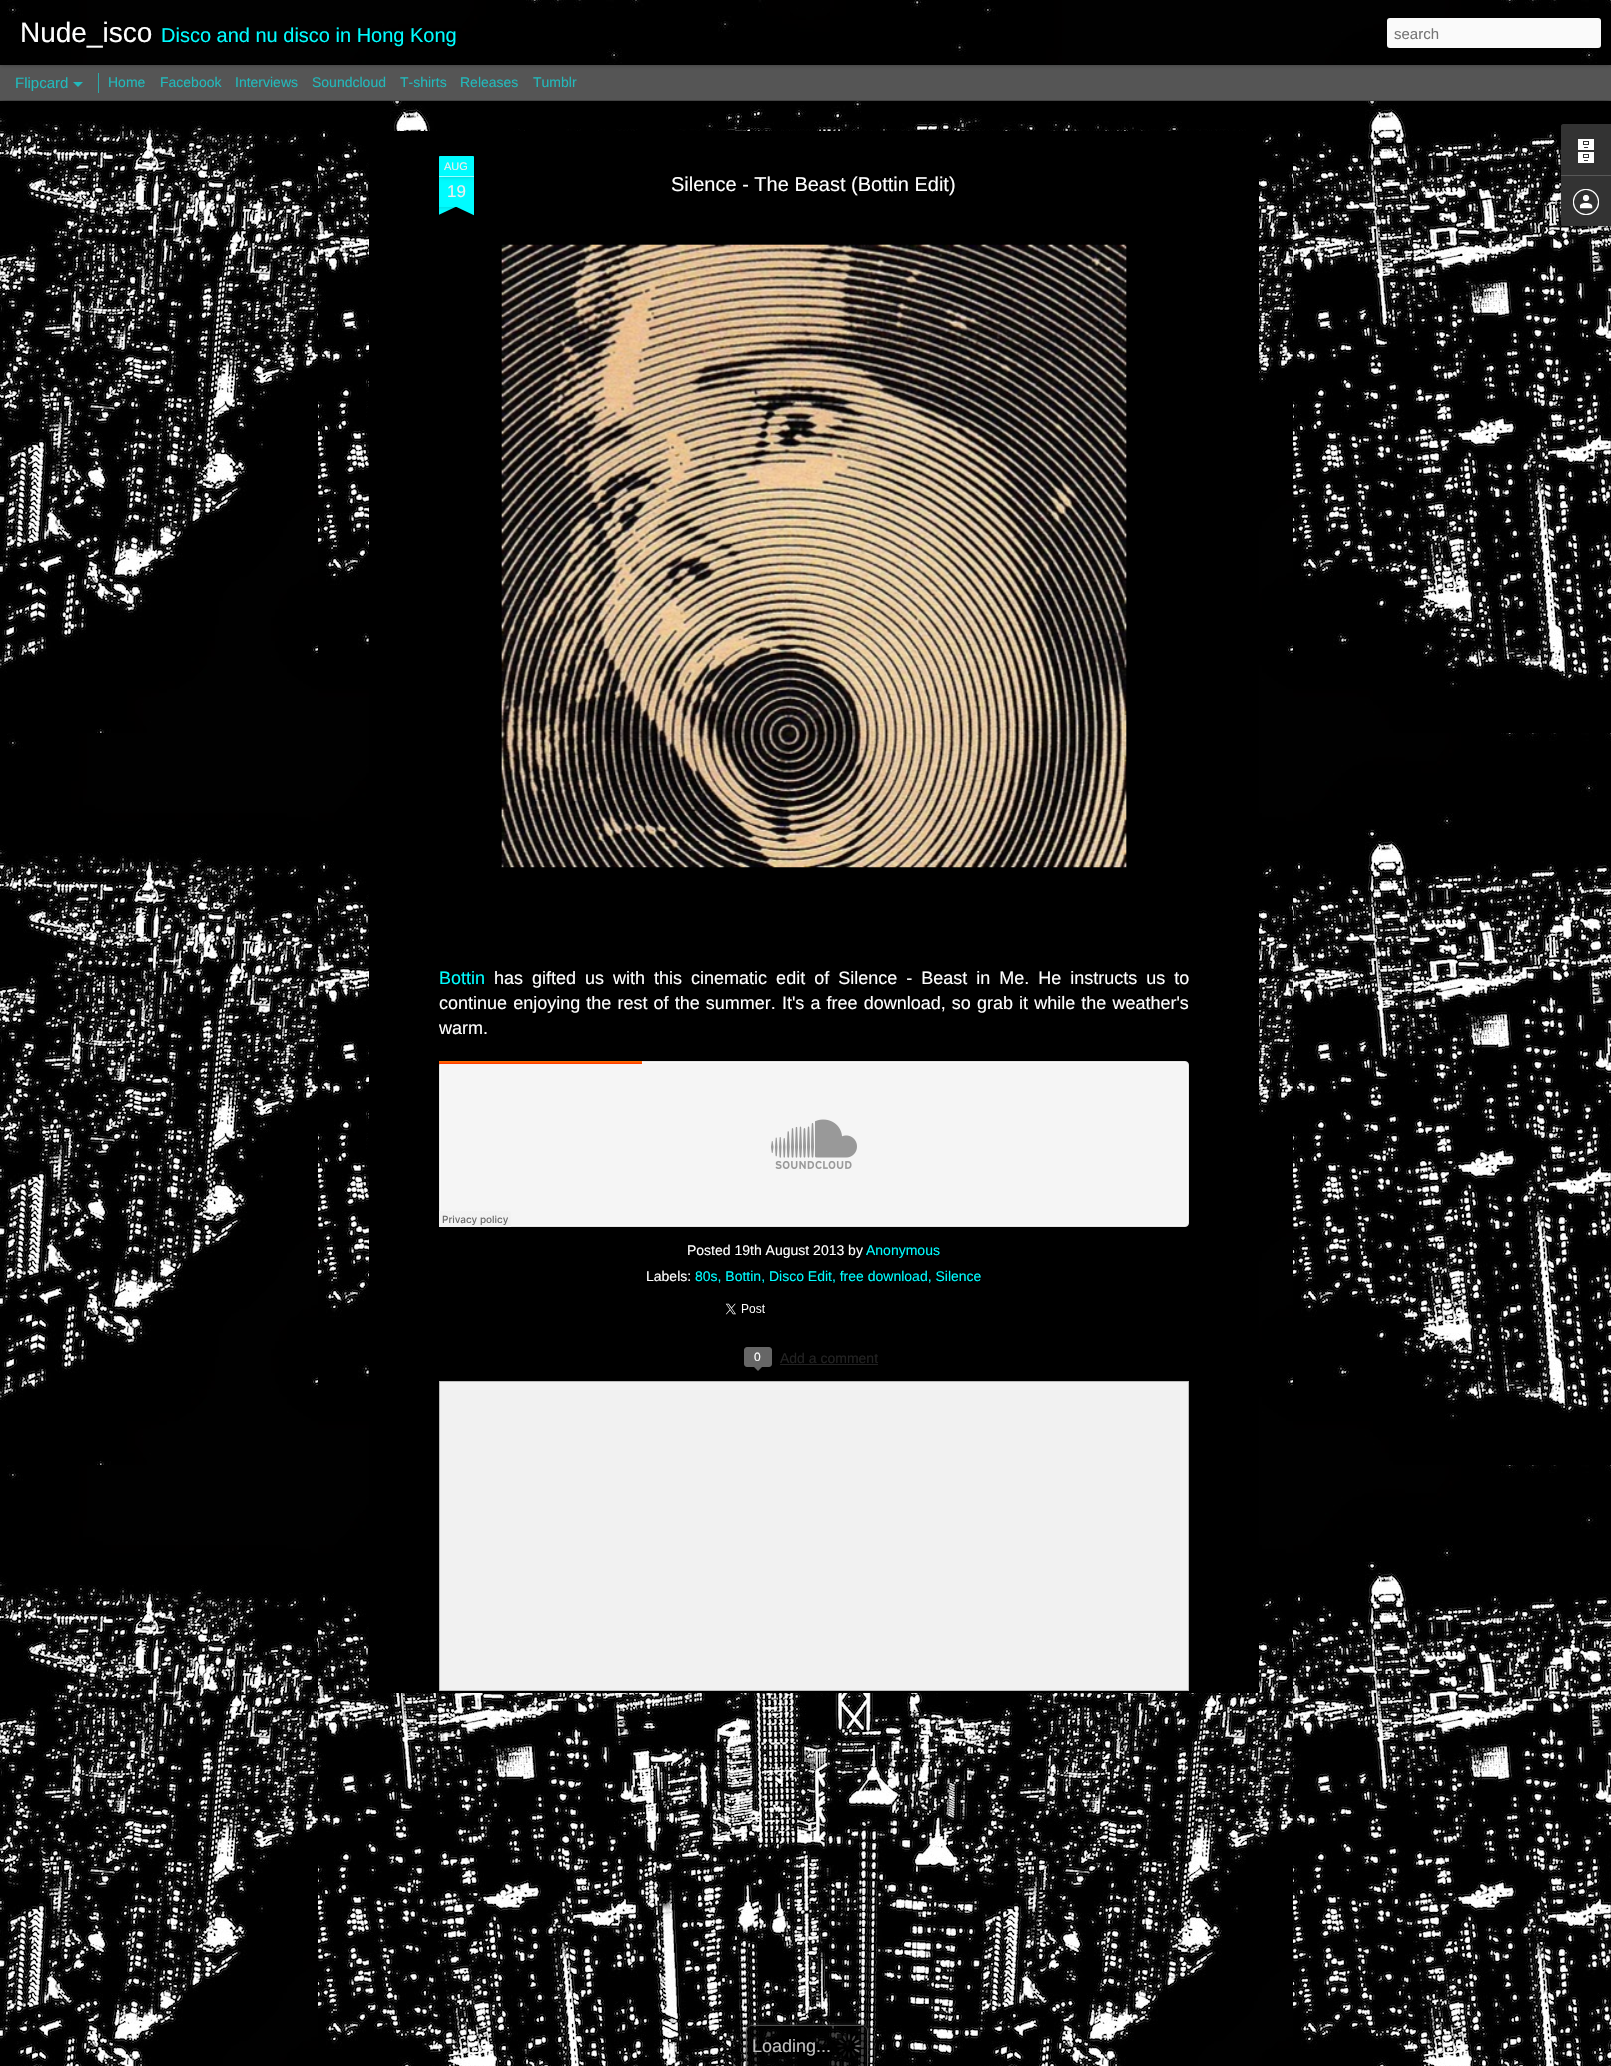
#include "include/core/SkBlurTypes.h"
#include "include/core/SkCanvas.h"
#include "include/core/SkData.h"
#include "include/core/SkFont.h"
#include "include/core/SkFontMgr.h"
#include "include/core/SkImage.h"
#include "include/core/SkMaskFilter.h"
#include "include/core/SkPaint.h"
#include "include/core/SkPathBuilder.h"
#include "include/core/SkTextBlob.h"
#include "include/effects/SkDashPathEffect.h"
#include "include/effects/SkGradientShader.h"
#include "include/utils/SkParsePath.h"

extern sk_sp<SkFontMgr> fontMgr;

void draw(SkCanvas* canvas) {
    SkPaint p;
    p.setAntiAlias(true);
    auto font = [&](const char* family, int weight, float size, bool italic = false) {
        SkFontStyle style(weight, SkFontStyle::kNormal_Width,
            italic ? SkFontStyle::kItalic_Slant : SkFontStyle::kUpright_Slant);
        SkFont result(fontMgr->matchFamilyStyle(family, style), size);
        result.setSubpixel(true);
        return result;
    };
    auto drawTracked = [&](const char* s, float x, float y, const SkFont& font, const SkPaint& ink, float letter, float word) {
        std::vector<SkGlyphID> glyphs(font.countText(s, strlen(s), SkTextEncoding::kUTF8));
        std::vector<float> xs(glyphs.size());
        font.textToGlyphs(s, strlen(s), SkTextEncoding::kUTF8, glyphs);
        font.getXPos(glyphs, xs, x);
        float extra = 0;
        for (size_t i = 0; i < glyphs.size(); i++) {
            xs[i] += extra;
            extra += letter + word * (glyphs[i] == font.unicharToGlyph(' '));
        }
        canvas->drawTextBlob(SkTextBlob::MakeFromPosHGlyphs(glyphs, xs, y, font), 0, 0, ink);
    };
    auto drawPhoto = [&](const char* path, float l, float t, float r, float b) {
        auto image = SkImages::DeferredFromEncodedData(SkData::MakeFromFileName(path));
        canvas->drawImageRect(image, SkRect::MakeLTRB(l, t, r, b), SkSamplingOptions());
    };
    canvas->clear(0xFF555555);
    drawPhoto("media/2.png", 0, 101, 1611, 2066);
    p.setColor(0x80000000);
    p.setMaskFilter(SkMaskFilter::MakeBlur(kNormal_SkBlurStyle, 4));
    canvas->drawRect(SkRect::MakeLTRB(0, 65, 1611, 100), p);
    p.setMaskFilter(nullptr);
    p.setColor(0xFF555555);
    canvas->drawRect(SkRect::MakeLTRB(0, 65, 1611, 100), p);
    p.setColor(0xFF2BA9AA);
    canvas->drawRect(SkRect::MakeLTRB(98, 73, 99, 93), p);
    p.setColor(0x4D000000);
    p.setMaskFilter(SkMaskFilter::MakeBlur(kNormal_SkBlurStyle, 2.5f));
    canvas->drawRect(SkRect::MakeLTRB(0, 0, 1611, 65), p);
    p.setMaskFilter(nullptr);
    p.setColor(0xFF000000);
    canvas->drawRect(SkRect::MakeLTRB(0, 0, 1611, 65), p);
    drawPhoto("media/1.png", 7, 0, 1611, 64);
    auto font1 = font("Liberation Sans", 400, 28);
    p.setColor(0xFFFFFFFF);
    canvas->drawString("Nude_isco", 20, 42, font1, p);
    auto font2 = font("Liberation Sans", 400, 20);
    p.setColor(0xFF00FCFF);
    canvas->drawString("Disco and nu disco in Hong Kong", 161, 42, font2, p);
    p.setColor(0xFFFAFAFA);
    canvas->drawRoundRect(SkRect::MakeLTRB(1387, 18, 1601, 48), 3, 3, p);
    auto font3 = font("Liberation Sans", 400, 15);
    p.setColor(0xFF757575);
    canvas->drawString("search", 1394, 39, font3, p);
    p.setColor(0xFF22B9BB);
    canvas->drawString("Flipcard", 15, 88, font3, p);
    canvas->drawPath(SkPathBuilder().moveTo(73, 82).lineTo(83, 82).lineTo(78, 87).close().detach(), p);
    auto font4 = font("Liberation Sans", 400, 14);
    {
        const struct { const char* s; float x, y; } items[] = {
            {"Home", 108, 87},
            {"Facebook", 160, 87},
            {"Interviews", 235, 87},
            {"Soundcloud", 312, 87},
            {"T-shirts", 400, 87},
            {"Releases", 460, 87},
            {"Tumblr", 533, 87},
        };
        for (auto [s, x, y] : items) {
            canvas->drawString(s, x, y, font4, p);
        }
    }
    p.setColor(0xFF000000);
    canvas->drawRect(SkRect::MakeLTRB(369, 131, 1259, 1693), p);
    p.setColor(0xFF00FCFF);
    canvas->drawRect(SkRect::MakeLTRB(439, 177, 474, 207), p);
    p.setColor(0x33000000);
    p.setMaskFilter(SkMaskFilter::MakeBlur(kNormal_SkBlurStyle, 2.5f));
    canvas->drawRoundRect(SkRect::MakeLTRB(439, 156, 474, 177), 1, 1, p);
    p.setMaskFilter(nullptr);
    p.setColor(0xFF00FCFF);
    canvas->drawPath(SkPathBuilder().moveTo(440, 156).lineTo(473, 156).cubicTo(473.5f, 156, 474, 156.5f, 474, 157).lineTo(474, 177).lineTo(439, 177).lineTo(439, 157).cubicTo(439, 156.5f, 439.5f, 156, 440, 156).close().detach(), p);
    p.setColor(0xFF99FEFF);
    canvas->drawRect(SkRect::MakeLTRB(439, 176, 474, 177), p);
    auto font5 = font("Liberation Sans", 400, 11);
    p.setColor(0xFFEEEEEE);
    canvas->drawString("AUG", 444, 170, font5, p);
    auto font6 = font("Liberation Sans", 400, 17);
    canvas->drawString("19", 447, 197, font6, p);
    canvas->save();
    canvas->clipRect(SkRect::MakeLTRB(439, 207, 474, 217));
    p.setColor(0xFF00FCFF);
    canvas->drawPath(SkPathBuilder().moveTo(430, 208).lineTo(475, 187).lineTo(479, 196).lineTo(434, 217).close().detach(), p);
    canvas->restore();
    canvas->save();
    canvas->clipRect(SkRect::MakeLTRB(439, 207, 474, 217));
    p.setColor(0x33000000);
    p.setMaskFilter(SkMaskFilter::MakeBlur(kNormal_SkBlurStyle, 2.5f));
    canvas->drawRect(SkRect::MakeLTRB(433, 197, 483, 207), p);
    p.setMaskFilter(nullptr);
    canvas->restore();
    canvas->save();
    canvas->clipRect(SkRect::MakeLTRB(439, 207, 474, 217));
    p.setColor(0xFF00FCFF);
    canvas->drawPath(SkPathBuilder().moveTo(437, 187).lineTo(482, 208).lineTo(478, 217).lineTo(433, 196).close().detach(), p);
    canvas->restore();
    p.setColor(0xFFFFFFFF);
    canvas->drawString("Silence - The Beast (Bottin Edit)", 671, 191, font2, p);
    drawPhoto("media/3.png", 502, 245, 1126, 867);
    drawPhoto("media/4.png", 501, 244, 1127, 868);
    auto font7 = font("Liberation Sans", 400, 18);
    p.setColor(0xFF00FCFF);
    canvas->drawString("Bottin", 439, 984, font7, p);
    p.setColor(0xFFFFFFFF);
    drawTracked("has gifted us with this cinematic edit of Silence - Beast in Me. He instructs us to", 494, 984, font7, p, 0, 4);
    drawTracked("continue enjoying the rest of the summer. It's a free download, so grab it while the weather's", 439, 1009, font7, p, 0, 1.1f);
    canvas->drawString("warm.", 439, 1034, font7, p);
    drawPhoto("media/5.png", 439, 1061, 1189, 1227);
    canvas->drawString("Posted 19th August 2013 by", 687, 1255, font4, p);
    p.setColor(0xFF00FCFF);
    canvas->drawString("Anonymous", 866, 1255, font4, p);
    p.setColor(0xFFFFFFFF);
    canvas->drawString("Labels:", 646, 1281, font4, p);
    p.setColor(0xFF00FCFF);
    canvas->drawString("80s, Bottin, Disco Edit, free download, Silence", 695, 1281, font4, p);
    drawPhoto("media/6.png", 725, 1303, 765, 1315);
    p.setColor(0xFF666666);
    canvas->drawRoundRect(SkRect::MakeLTRB(744.5f, 1347.5f, 771.5f, 1366.5f), 2.5f, 2.5f, p);
    p.setStyle(SkPaint::kStroke_Style);
    p.setStrokeWidth(1);
    canvas->drawRoundRect(SkRect::MakeLTRB(744.5f, 1347.5f, 771.5f, 1366.5f), 2.5f, 2.5f, p);
    auto font8 = font("Liberation Sans", 400, 12);
    p.setStyle(SkPaint::kFill_Style);
    p.setColor(0xFFFFFFFF);
    canvas->drawString("0", 754, 1361, font8, p);
    p.setColor(0xFF666666);
    canvas->drawPath(SkPathBuilder().moveTo(753, 1366).lineTo(763, 1366).lineTo(758, 1371).close().detach(), p);
    p.setColor(0xFF222222);
    canvas->drawString("Add a comment", 780, 1363, font4, p);
    canvas->drawRect(SkRect::MakeLTRB(780, 1364, 878, 1365), p);
    p.setColor(0xFFF1F1F1);
    canvas->drawRect(SkRect::MakeLTRB(439.5f, 1381.5f, 1188.5f, 1690.5f), p);
    p.setStyle(SkPaint::kStroke_Style);
    p.setColor(0xFFBBBBBB);
    canvas->drawRect(SkRect::MakeLTRB(439.5f, 1381.5f, 1188.5f, 1690.5f), p);
    p.setStyle(SkPaint::kFill_Style);
    p.setColor(0x4D000000);
    p.setMaskFilter(SkMaskFilter::MakeBlur(kNormal_SkBlurStyle, 1.5f));
    canvas->drawRoundRect(SkRect::MakeLTRB(1561, 125, 1611, 227), 2, 2, p);
    p.setMaskFilter(nullptr);
    p.setColor(0xFF333333);
    canvas->drawPath(SkPathBuilder().moveTo(1563, 124).lineTo(1611, 124).lineTo(1611, 175).lineTo(1561, 175).lineTo(1561, 126).cubicTo(1561, 125, 1562, 124, 1563, 124).close().detach(), p);
    drawPhoto("media/7.png", 1578, 139, 1594, 163);
    canvas->drawPath(SkPathBuilder().moveTo(1561, 175).lineTo(1611, 175).lineTo(1611, 226).lineTo(1563, 226).cubicTo(1562, 226, 1561, 225, 1561, 224).close().detach(), p);
    p.setColor(0xFF585858);
    canvas->drawRect(SkRect::MakeLTRB(1561, 175, 1611, 176), p);
    drawPhoto("media/8.png", 1573, 189, 1599, 215);
    canvas->save();
    canvas->clipPath(SkPathBuilder(SkPathFillType::kEvenOdd).moveTo(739, 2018).lineTo(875, 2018).lineTo(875, 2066).lineTo(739, 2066).close().moveTo(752, 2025).lineTo(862, 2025).cubicTo(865.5f, 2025, 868, 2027.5f, 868, 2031).lineTo(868, 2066).lineTo(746, 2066).lineTo(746, 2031).cubicTo(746, 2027.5f, 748.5f, 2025, 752, 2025).close().detach(), true);
    p.setColor(0xBF333333);
    p.setMaskFilter(SkMaskFilter::MakeBlur(kNormal_SkBlurStyle, 2));
    canvas->drawRoundRect(SkRect::MakeLTRB(746, 2025, 868, 2066), 6, 6, p);
    p.setMaskFilter(nullptr);
    canvas->restore();
    p.setColor(0xBF000000);
    canvas->drawPath(SkPathBuilder().moveTo(752, 2025).lineTo(862, 2025).cubicTo(865.5f, 2025, 868, 2027.5f, 868, 2031).lineTo(868, 2066).lineTo(746, 2066).lineTo(746, 2031).cubicTo(746, 2027.5f, 748.5f, 2025, 752, 2025).close().detach(), p);
    p.setColor(0xBF666666);
    canvas->drawPath(SkPathBuilder(SkPathFillType::kEvenOdd).moveTo(752, 2025).lineTo(862, 2025).cubicTo(865, 2025, 868, 2028, 868, 2031).lineTo(868, 2066).lineTo(746, 2066).lineTo(746, 2031).cubicTo(746, 2028, 749, 2025, 752, 2025).close().moveTo(752, 2026).lineTo(862, 2026).cubicTo(865, 2026, 867, 2028, 867, 2031).lineTo(867, 2066).lineTo(747, 2066).lineTo(747, 2031).cubicTo(747, 2028, 749, 2026, 752, 2026).close().detach(), p);
    drawPhoto("media/9.png", 837, 2034, 861, 2058);
    p.setColor(0xFFC0C0C0);
    canvas->drawString("Loading", 752, 2052, font7, p);
    canvas->drawString("...", 816, 2052, font7, p);
}
